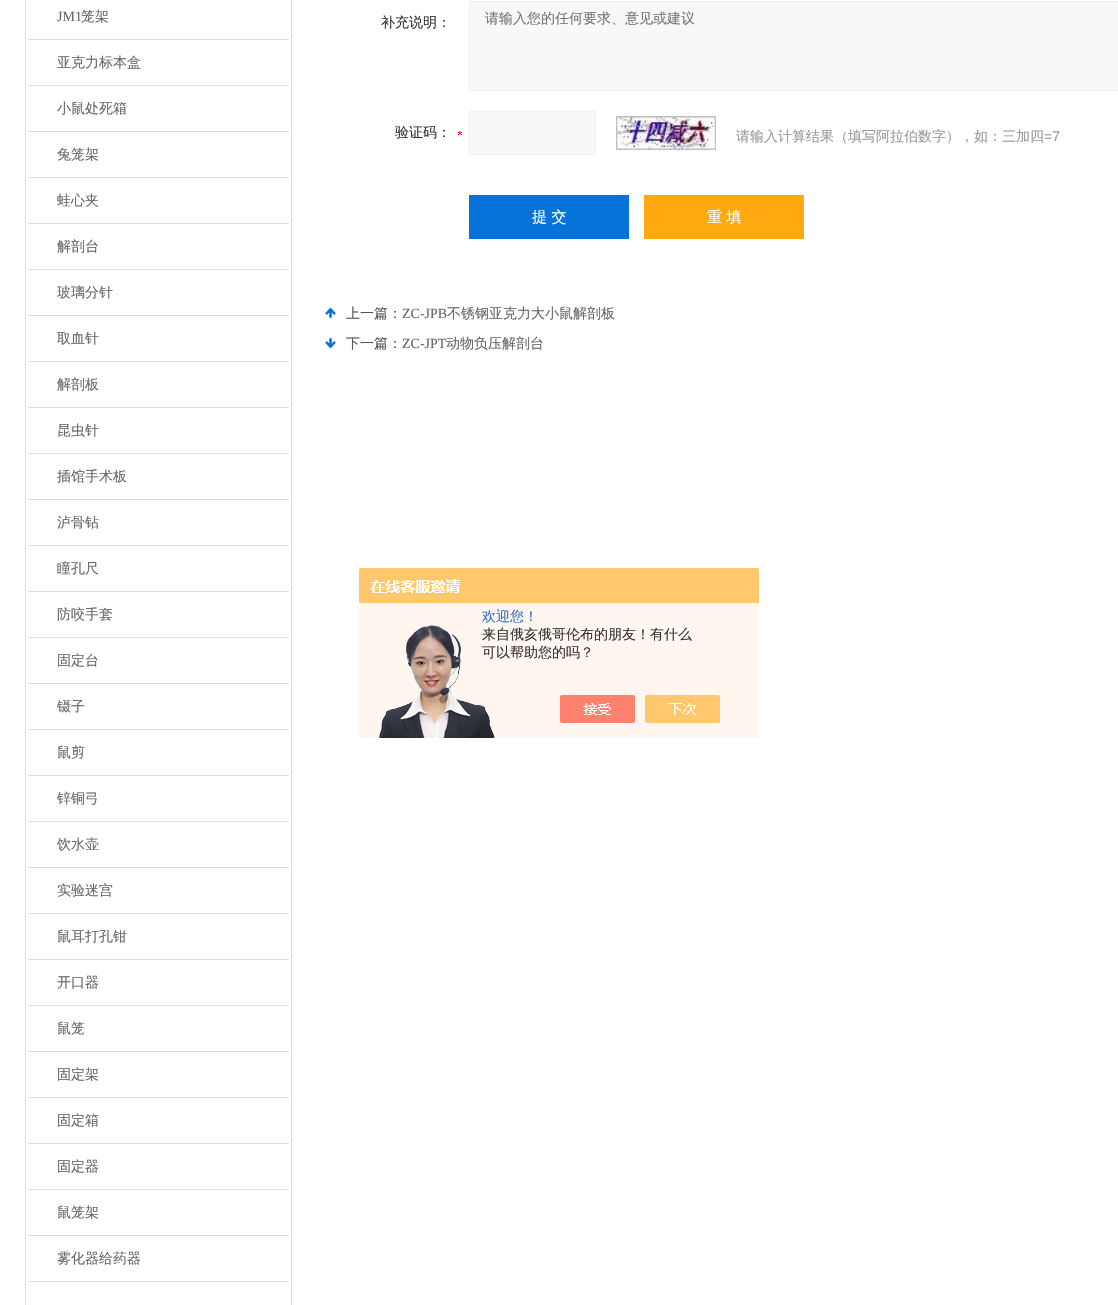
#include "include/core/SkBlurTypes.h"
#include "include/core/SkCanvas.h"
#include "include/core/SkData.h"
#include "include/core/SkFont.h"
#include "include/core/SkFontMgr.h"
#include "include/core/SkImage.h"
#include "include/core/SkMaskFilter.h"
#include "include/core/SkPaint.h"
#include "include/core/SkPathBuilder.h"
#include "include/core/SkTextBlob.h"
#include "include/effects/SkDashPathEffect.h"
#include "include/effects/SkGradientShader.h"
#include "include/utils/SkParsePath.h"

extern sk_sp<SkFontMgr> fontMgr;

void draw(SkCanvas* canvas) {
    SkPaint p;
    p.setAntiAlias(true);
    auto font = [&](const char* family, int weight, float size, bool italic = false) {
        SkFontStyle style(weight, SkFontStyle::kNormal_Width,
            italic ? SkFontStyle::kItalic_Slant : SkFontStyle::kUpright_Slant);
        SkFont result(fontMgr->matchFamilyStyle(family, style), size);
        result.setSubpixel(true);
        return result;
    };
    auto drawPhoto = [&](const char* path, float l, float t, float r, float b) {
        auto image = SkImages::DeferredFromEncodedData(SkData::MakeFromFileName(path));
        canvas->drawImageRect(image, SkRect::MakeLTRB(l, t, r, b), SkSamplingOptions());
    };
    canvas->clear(0xFFFFFFFF);
    {
        const struct { float l, t, r, b; SkColor color; } items[] = {
            {291, 0, 292, 1305, 0xFFDDDDDD},
            {25, 0, 26, 1305, 0xFFDDDDDD},
            {29, 39, 289, 40, 0xFFDDDDDD},
        };
        for (auto [l, t, r, b, color] : items) {
            p.setColor(color);
            canvas->drawRect(SkRect::MakeLTRB(l, t, r, b), p);
        }
    }
    auto font1 = font("Liberation Serif", 400, 14);
    p.setColor(0xFF666666);
    canvas->drawString("JM1", 57, 21, font1, p);
    auto font2 = font("WenQuanYi Zen Hei", 500, 14);
    canvas->drawString("笼架", 81, 21, font2, p);
    p.setColor(0xFFDDDDDD);
    canvas->drawRect(SkRect::MakeLTRB(29, 85, 289, 86), p);
    p.setColor(0xFF666666);
    canvas->drawString("亚克力标本盒", 57, 67, font2, p);
    p.setColor(0xFFDDDDDD);
    canvas->drawRect(SkRect::MakeLTRB(29, 131, 289, 132), p);
    p.setColor(0xFF666666);
    canvas->drawString("小鼠处死箱", 57, 113, font2, p);
    p.setColor(0xFFDDDDDD);
    canvas->drawRect(SkRect::MakeLTRB(29, 177, 289, 178), p);
    p.setColor(0xFF666666);
    canvas->drawString("兔笼架", 57, 159, font2, p);
    p.setColor(0xFFDDDDDD);
    canvas->drawRect(SkRect::MakeLTRB(29, 223, 289, 224), p);
    p.setColor(0xFF666666);
    canvas->drawString("蛙心夹", 57, 205, font2, p);
    p.setColor(0xFFDDDDDD);
    canvas->drawRect(SkRect::MakeLTRB(29, 269, 289, 270), p);
    p.setColor(0xFF666666);
    canvas->drawString("解剖台", 57, 251, font2, p);
    p.setColor(0xFFDDDDDD);
    canvas->drawRect(SkRect::MakeLTRB(29, 315, 289, 316), p);
    p.setColor(0xFF666666);
    canvas->drawString("玻璃分针", 57, 297, font2, p);
    p.setColor(0xFFDDDDDD);
    canvas->drawRect(SkRect::MakeLTRB(29, 361, 289, 362), p);
    p.setColor(0xFF666666);
    canvas->drawString("取血针", 57, 343, font2, p);
    p.setColor(0xFFDDDDDD);
    canvas->drawRect(SkRect::MakeLTRB(29, 407, 289, 408), p);
    p.setColor(0xFF666666);
    canvas->drawString("解剖板", 57, 389, font2, p);
    p.setColor(0xFFDDDDDD);
    canvas->drawRect(SkRect::MakeLTRB(29, 453, 289, 454), p);
    p.setColor(0xFF666666);
    canvas->drawString("昆虫针", 57, 435, font2, p);
    p.setColor(0xFFDDDDDD);
    canvas->drawRect(SkRect::MakeLTRB(29, 499, 289, 500), p);
    p.setColor(0xFF666666);
    canvas->drawString("插馆手术板", 57, 481, font2, p);
    p.setColor(0xFFDDDDDD);
    canvas->drawRect(SkRect::MakeLTRB(29, 545, 289, 546), p);
    p.setColor(0xFF666666);
    canvas->drawString("泸骨钻", 57, 527, font2, p);
    p.setColor(0xFFDDDDDD);
    canvas->drawRect(SkRect::MakeLTRB(29, 591, 289, 592), p);
    p.setColor(0xFF666666);
    canvas->drawString("瞳孔尺", 57, 573, font2, p);
    p.setColor(0xFFDDDDDD);
    canvas->drawRect(SkRect::MakeLTRB(29, 637, 289, 638), p);
    p.setColor(0xFF666666);
    canvas->drawString("防咬手套", 57, 619, font2, p);
    p.setColor(0xFFDDDDDD);
    canvas->drawRect(SkRect::MakeLTRB(29, 683, 289, 684), p);
    p.setColor(0xFF666666);
    canvas->drawString("固定台", 57, 665, font2, p);
    p.setColor(0xFFDDDDDD);
    canvas->drawRect(SkRect::MakeLTRB(29, 729, 289, 730), p);
    p.setColor(0xFF666666);
    canvas->drawString("镊子", 57, 711, font2, p);
    p.setColor(0xFFDDDDDD);
    canvas->drawRect(SkRect::MakeLTRB(29, 775, 289, 776), p);
    p.setColor(0xFF666666);
    canvas->drawString("鼠剪", 57, 757, font2, p);
    p.setColor(0xFFDDDDDD);
    canvas->drawRect(SkRect::MakeLTRB(29, 821, 289, 822), p);
    p.setColor(0xFF666666);
    canvas->drawString("锌铜弓", 57, 803, font2, p);
    p.setColor(0xFFDDDDDD);
    canvas->drawRect(SkRect::MakeLTRB(29, 867, 289, 868), p);
    p.setColor(0xFF666666);
    canvas->drawString("饮水壶", 57, 849, font2, p);
    p.setColor(0xFFDDDDDD);
    canvas->drawRect(SkRect::MakeLTRB(29, 913, 289, 914), p);
    p.setColor(0xFF666666);
    canvas->drawString("实验迷宫", 57, 895, font2, p);
    p.setColor(0xFFDDDDDD);
    canvas->drawRect(SkRect::MakeLTRB(29, 959, 289, 960), p);
    p.setColor(0xFF666666);
    canvas->drawString("鼠耳打孔钳", 57, 941, font2, p);
    p.setColor(0xFFDDDDDD);
    canvas->drawRect(SkRect::MakeLTRB(29, 1005, 289, 1006), p);
    p.setColor(0xFF666666);
    canvas->drawString("开口器", 57, 987, font2, p);
    p.setColor(0xFFDDDDDD);
    canvas->drawRect(SkRect::MakeLTRB(29, 1051, 289, 1052), p);
    p.setColor(0xFF666666);
    canvas->drawString("鼠笼", 57, 1033, font2, p);
    p.setColor(0xFFDDDDDD);
    canvas->drawRect(SkRect::MakeLTRB(29, 1097, 289, 1098), p);
    p.setColor(0xFF666666);
    canvas->drawString("固定架", 57, 1079, font2, p);
    p.setColor(0xFFDDDDDD);
    canvas->drawRect(SkRect::MakeLTRB(29, 1143, 289, 1144), p);
    p.setColor(0xFF666666);
    canvas->drawString("固定箱", 57, 1125, font2, p);
    p.setColor(0xFFDDDDDD);
    canvas->drawRect(SkRect::MakeLTRB(29, 1189, 289, 1190), p);
    p.setColor(0xFF666666);
    canvas->drawString("固定器", 57, 1171, font2, p);
    p.setColor(0xFFDDDDDD);
    canvas->drawRect(SkRect::MakeLTRB(29, 1235, 289, 1236), p);
    p.setColor(0xFF666666);
    canvas->drawString("鼠笼架", 57, 1217, font2, p);
    p.setColor(0xFFDDDDDD);
    canvas->drawRect(SkRect::MakeLTRB(29, 1281, 289, 1282), p);
    p.setColor(0xFF666666);
    canvas->drawString("雾化器给药器", 57, 1263, font2, p);
    p.setColor(0xFF333333);
    canvas->drawString("补充说明：", 381, 27, font2, p);
    p.setColor(0xFFF8F8F8);
    canvas->drawRect(SkRect::MakeLTRB(469.5f, 1.5f, 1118.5f, 90.5f), p);
    p.setStyle(SkPaint::kStroke_Style);
    p.setStrokeWidth(1);
    p.setColor(0xFFF1F1F1);
    canvas->drawRect(SkRect::MakeLTRB(469.5f, 1.5f, 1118.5f, 90.5f), p);
    p.setStyle(SkPaint::kFill_Style);
    p.setColor(0xFF757575);
    canvas->drawString("请输入您的任何要求、意见或建议", 485, 23, font2, p);
    drawPhoto("media/1.png", 457, 131, 462, 135);
    p.setColor(0xFF333333);
    canvas->drawString("验证码：", 395, 137, font2, p);
    p.setColor(0xFFF8F8F8);
    canvas->drawRect(SkRect::MakeLTRB(469.5f, 111.5f, 595.5f, 154.5f), p);
    p.setStyle(SkPaint::kStroke_Style);
    p.setColor(0xFFF1F1F1);
    canvas->drawRect(SkRect::MakeLTRB(469.5f, 111.5f, 595.5f, 154.5f), p);
    drawPhoto("media/2.png", 616, 116, 716, 150);
    p.setStyle(SkPaint::kFill_Style);
    p.setColor(0xFF999999);
    canvas->drawString("请输入计算结果（填写阿拉伯数字），如：三加四", 736, 141, font2, p);
    auto font3 = font("Liberation Sans", 400, 14);
    canvas->drawString("=7", 1044, 141, font3, p);
    p.setColor(0xFF0573DA);
    canvas->drawRect(SkRect::MakeLTRB(469, 195, 629, 239), p);
    auto font4 = font("WenQuanYi Zen Hei", 500, 15);
    p.setColor(0xFFFFFFFF);
    canvas->drawString("提 交", 532, 222, font4, p);
    p.setColor(0xFFFFA810);
    canvas->drawRect(SkRect::MakeLTRB(644, 195, 804, 239), p);
    p.setColor(0xFFFFFFFF);
    canvas->drawString("重 填", 707, 222, font4, p);
    p.setColor(0xFF0573DA);
    canvas->drawRect(SkRect::MakeLTRB(325, 308, 336, 318), p);
    drawPhoto("media/3.png", 325, 308, 336, 318);
    p.setColor(0xFF555555);
    canvas->drawString("上一篇：", 346, 318, font2, p);
    p.setColor(0xFF666666);
    canvas->drawString("ZC-JPB", 402, 318, font1, p);
    canvas->drawString("不锈钢亚克力大小鼠解剖板", 447, 318, font2, p);
    p.setColor(0xFF0573DA);
    canvas->drawRect(SkRect::MakeLTRB(325, 338, 336, 348), p);
    drawPhoto("media/4.png", 325, 338, 336, 348);
    p.setColor(0xFF555555);
    canvas->drawString("下一篇：", 346, 348, font2, p);
    p.setColor(0xFF666666);
    canvas->drawString("ZC-JPT", 402, 348, font1, p);
    canvas->drawString("动物负压解剖台", 446, 348, font2, p);
    drawPhoto("media/5.png", 359, 568, 759, 738);
    p.setColor(0xFF2E6EC6);
    canvas->drawString("欢迎您！", 482, 621, font2, p);
    p.setColor(0xFF333333);
    canvas->drawString("来自俄亥俄哥伦布的朋友！有什么", 482, 639, font2, p);
    canvas->drawString("可以帮助您的吗？", 482, 657, font2, p);
}
